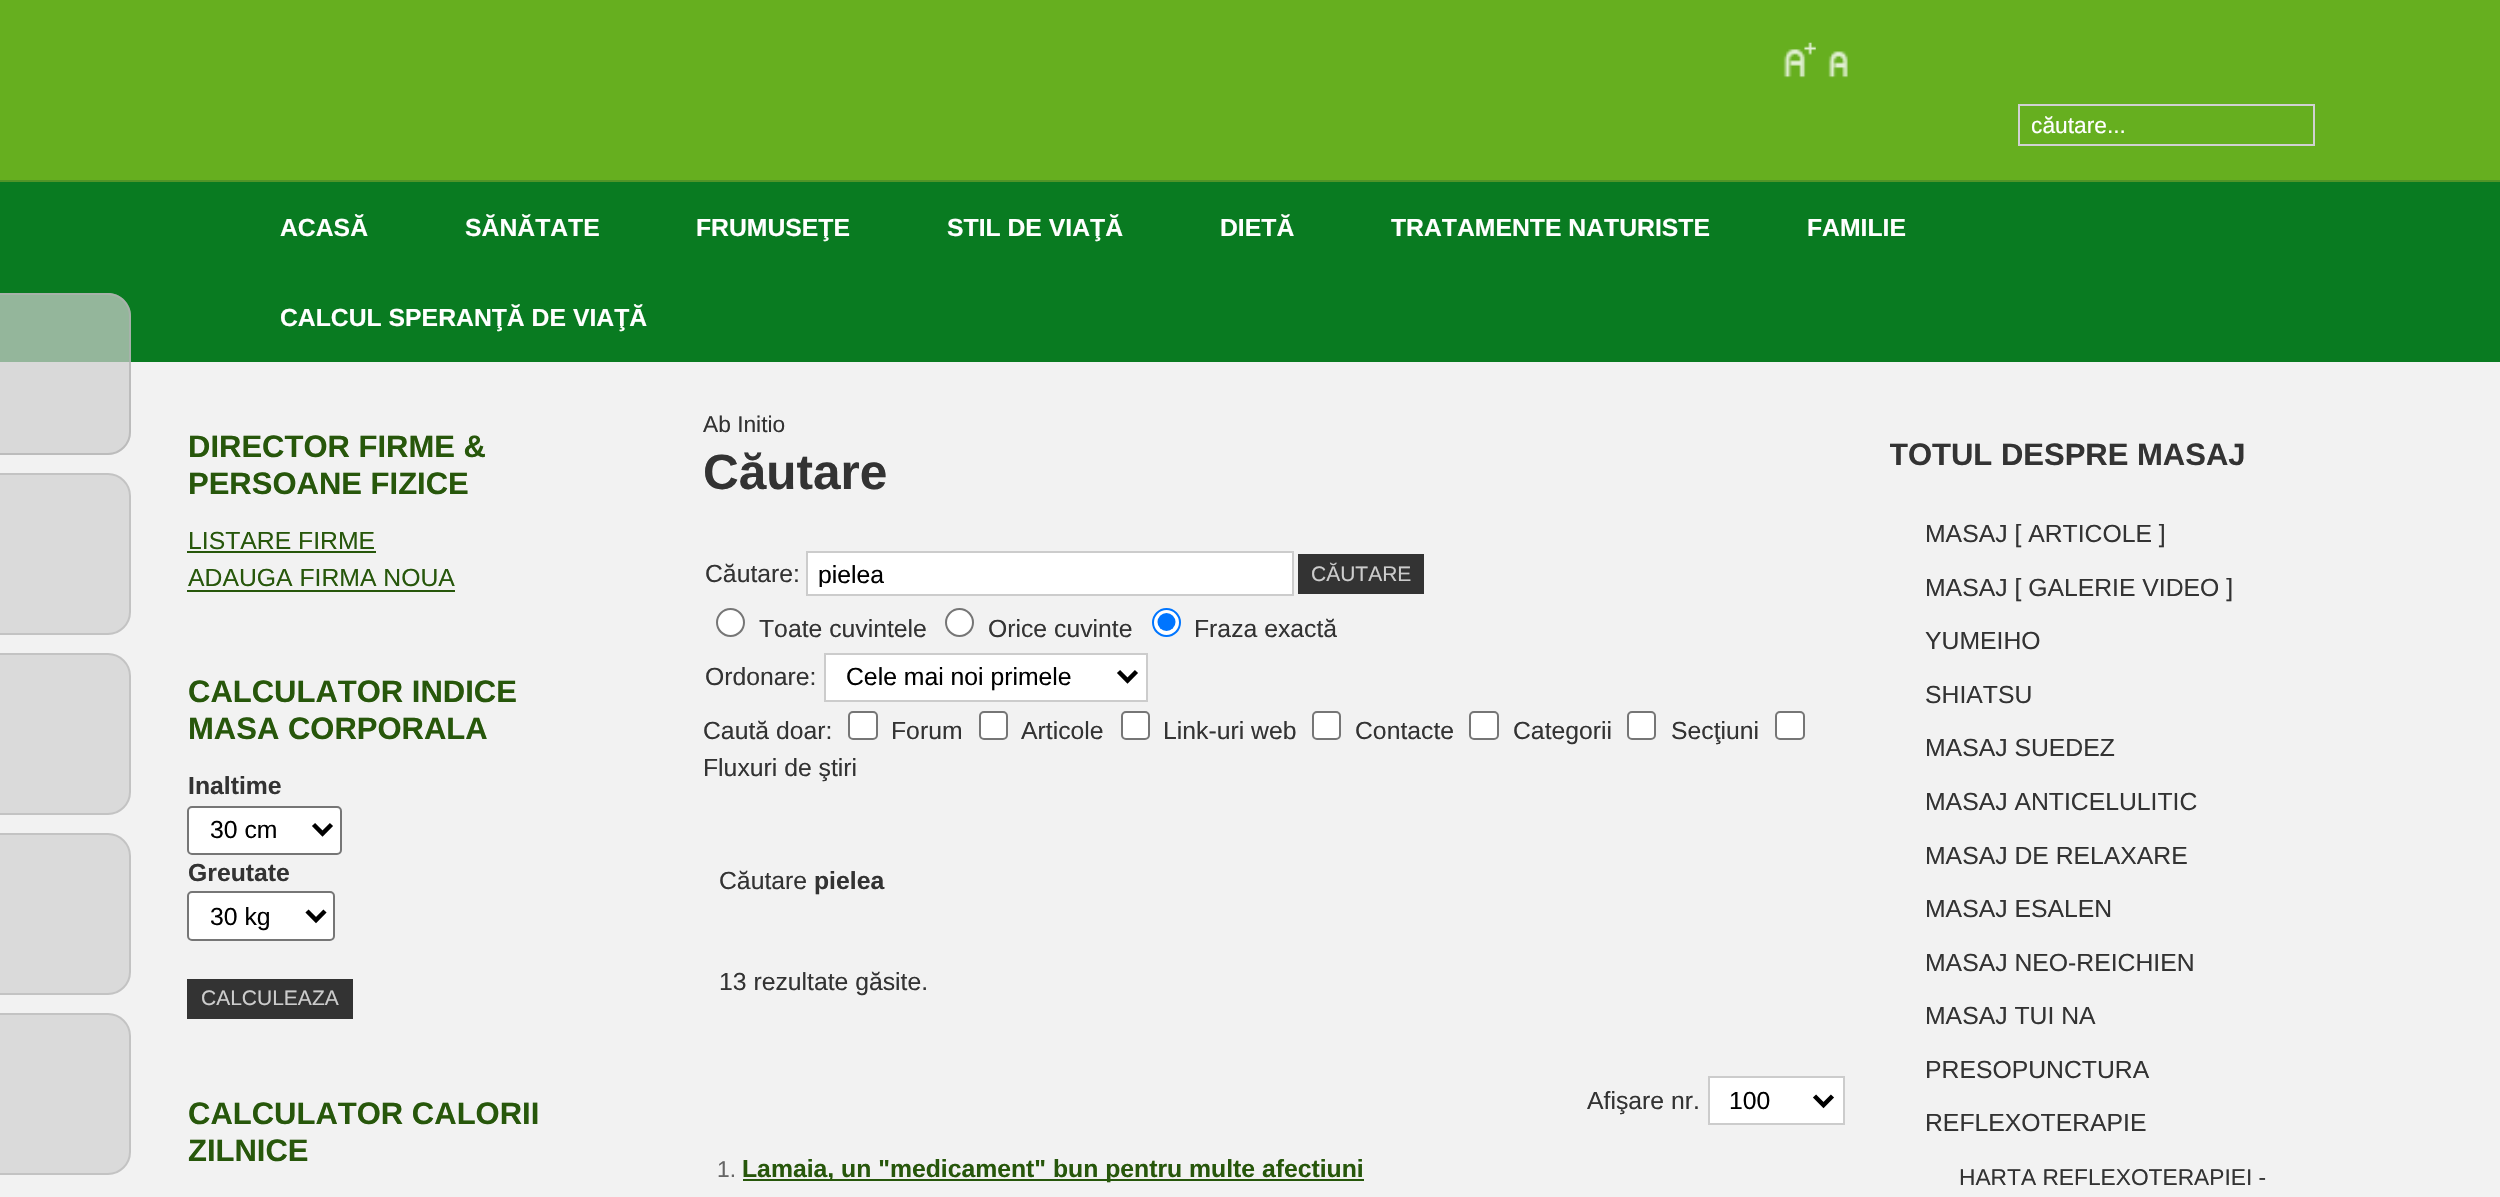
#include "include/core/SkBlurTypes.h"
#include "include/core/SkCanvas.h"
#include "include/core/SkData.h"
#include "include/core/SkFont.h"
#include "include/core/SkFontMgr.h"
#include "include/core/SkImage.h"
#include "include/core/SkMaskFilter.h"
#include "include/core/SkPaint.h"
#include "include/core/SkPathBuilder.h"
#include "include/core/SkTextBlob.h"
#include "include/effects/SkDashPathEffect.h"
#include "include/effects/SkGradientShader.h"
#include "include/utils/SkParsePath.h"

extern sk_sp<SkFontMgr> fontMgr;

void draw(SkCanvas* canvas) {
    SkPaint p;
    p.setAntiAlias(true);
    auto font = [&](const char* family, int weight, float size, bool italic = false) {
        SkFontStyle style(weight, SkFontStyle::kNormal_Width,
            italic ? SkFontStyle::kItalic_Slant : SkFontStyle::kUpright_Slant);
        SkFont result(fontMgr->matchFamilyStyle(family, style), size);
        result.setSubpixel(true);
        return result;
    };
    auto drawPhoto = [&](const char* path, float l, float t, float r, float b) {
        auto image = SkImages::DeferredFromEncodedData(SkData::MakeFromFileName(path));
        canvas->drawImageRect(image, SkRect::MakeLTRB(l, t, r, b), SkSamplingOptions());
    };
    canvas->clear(0xFFF2F2F2);
    p.setColor(0xFF097B21);
    canvas->drawRect(SkRect::MakeLTRB(0, 182, 2500, 362), p);
    p.setColor(0xB3CFCFCF);
    canvas->drawPath(SkPathBuilder().moveTo(-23, 293).lineTo(108, 293).cubicTo(120.5f, 293, 131, 303.5f, 131, 316).lineTo(131, 432).cubicTo(131, 444.5f, 120.5f, 455, 108, 455).lineTo(-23, 455).close().detach(), p);
    p.setStyle(SkPaint::kStroke_Style);
    p.setStrokeWidth(2);
    p.setColor(0xB3AFAFAF);
    canvas->drawPath(SkPathBuilder().moveTo(-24, 294).lineTo(108, 294).cubicTo(120, 294, 130, 304, 130, 316).lineTo(130, 432).cubicTo(130, 444, 120, 454, 108, 454).lineTo(-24, 454).close().detach(), p);
    p.setStyle(SkPaint::kFill_Style);
    p.setColor(0xFFDADADA);
    canvas->drawPath(SkPathBuilder().moveTo(-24, 474).lineTo(108, 474).cubicTo(120, 474, 130, 484, 130, 496).lineTo(130, 612).cubicTo(130, 624, 120, 634, 108, 634).lineTo(-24, 634).close().detach(), p);
    p.setStyle(SkPaint::kStroke_Style);
    p.setColor(0xFFC3C3C3);
    canvas->drawPath(SkPathBuilder().moveTo(-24, 474).lineTo(108, 474).cubicTo(120, 474, 130, 484, 130, 496).lineTo(130, 612).cubicTo(130, 624, 120, 634, 108, 634).lineTo(-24, 634).close().detach(), p);
    p.setStyle(SkPaint::kFill_Style);
    p.setColor(0xFFDADADA);
    canvas->drawPath(SkPathBuilder().moveTo(-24, 654).lineTo(108, 654).cubicTo(120, 654, 130, 664, 130, 676).lineTo(130, 792).cubicTo(130, 804, 120, 814, 108, 814).lineTo(-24, 814).close().detach(), p);
    p.setStyle(SkPaint::kStroke_Style);
    p.setColor(0xFFC3C3C3);
    canvas->drawPath(SkPathBuilder().moveTo(-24, 654).lineTo(108, 654).cubicTo(120, 654, 130, 664, 130, 676).lineTo(130, 792).cubicTo(130, 804, 120, 814, 108, 814).lineTo(-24, 814).close().detach(), p);
    p.setStyle(SkPaint::kFill_Style);
    p.setColor(0xFFDADADA);
    canvas->drawPath(SkPathBuilder().moveTo(-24, 834).lineTo(108, 834).cubicTo(120, 834, 130, 844, 130, 856).lineTo(130, 972).cubicTo(130, 984, 120, 994, 108, 994).lineTo(-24, 994).close().detach(), p);
    p.setStyle(SkPaint::kStroke_Style);
    p.setColor(0xFFC3C3C3);
    canvas->drawPath(SkPathBuilder().moveTo(-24, 834).lineTo(108, 834).cubicTo(120, 834, 130, 844, 130, 856).lineTo(130, 972).cubicTo(130, 984, 120, 994, 108, 994).lineTo(-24, 994).close().detach(), p);
    p.setStyle(SkPaint::kFill_Style);
    p.setColor(0xFFDADADA);
    canvas->drawPath(SkPathBuilder().moveTo(-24, 1014).lineTo(108, 1014).cubicTo(120, 1014, 130, 1024, 130, 1036).lineTo(130, 1152).cubicTo(130, 1164, 120, 1174, 108, 1174).lineTo(-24, 1174).close().detach(), p);
    p.setStyle(SkPaint::kStroke_Style);
    p.setColor(0xFFC3C3C3);
    canvas->drawPath(SkPathBuilder().moveTo(-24, 1014).lineTo(108, 1014).cubicTo(120, 1014, 130, 1024, 130, 1036).lineTo(130, 1152).cubicTo(130, 1164, 120, 1174, 108, 1174).lineTo(-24, 1174).close().detach(), p);
    p.setStyle(SkPaint::kFill_Style);
    p.setColor(0xFF66AF1F);
    canvas->drawRect(SkRect::MakeLTRB(0, 0, 2500, 180), p);
    drawPhoto("media/1.png", 1783, 42, 1816, 78);
    drawPhoto("media/2.png", 1828, 51, 1848, 78);
    p.setStyle(SkPaint::kStroke_Style);
    p.setColor(0xFFD1D1D1);
    canvas->drawRect(SkRect::MakeLTRB(2019, 105, 2314, 145), p);
    canvas->save();
    canvas->clipRect(SkRect::MakeLTRB(2032, 113, 2302, 137));
    auto font1 = font("Liberation Sans", 400, 22.75f);
    p.setStyle(SkPaint::kFill_Style);
    p.setColor(0xFFFFFFFF);
    canvas->drawString("căutare...", 2031, 133, font1, p);
    canvas->restore();
    p.setColor(0xFF519428);
    canvas->drawRect(SkRect::MakeLTRB(0, 180, 2500, 182), p);
    auto font2 = font("Liberation Sans", 700, 24.75f);
    p.setColor(0xFFFFFFFF);
    {
        const struct { const char* s; float x, y; } items[] = {
            {"ACASĂ", 280, 236},
            {"SĂNĂTATE", 465, 236},
            {"FRUMUSEŢE", 696, 236},
            {"STIL DE VIAŢĂ", 947, 236},
            {"DIETĂ", 1220, 236},
            {"TRATAMENTE NATURISTE", 1391, 236},
            {"FAMILIE", 1807, 236},
            {"CALCUL SPERANŢĂ DE VIAŢĂ", 280, 326},
        };
        for (auto [s, x, y] : items) {
            canvas->drawString(s, x, y, font2, p);
        }
    }
    auto font3 = font("Liberation Sans", 700, 31);
    p.setColor(0xFF27570B);
    canvas->drawString("DIRECTOR FIRME &", 188, 457, font3, p);
    canvas->drawString("PERSOANE FIZICE", 188, 494, font3, p);
    auto font4 = font("Liberation Sans", 400, 24.75f);
    canvas->drawString("LISTARE FIRME", 188, 549, font4, p);
    canvas->drawRect(SkRect::MakeLTRB(187, 551, 376, 553), p);
    canvas->drawString("ADAUGA FIRMA NOUA", 188, 586, font4, p);
    canvas->drawRect(SkRect::MakeLTRB(187, 590, 455, 592), p);
    canvas->drawString("CALCULATOR INDICE", 188, 702, font3, p);
    canvas->drawString("MASA CORPORALA", 188, 739, font3, p);
    p.setColor(0xFF333333);
    canvas->drawString("Inaltime", 188, 794, font2, p);
    p.setColor(0xFFFFFFFF);
    canvas->drawRoundRect(SkRect::MakeLTRB(188, 807, 341, 854), 4, 4, p);
    p.setStyle(SkPaint::kStroke_Style);
    p.setColor(0xFF767676);
    canvas->drawRoundRect(SkRect::MakeLTRB(188, 807, 341, 854), 4, 4, p);
    p.setStrokeWidth(4.5f);
    p.setColor(0xFF000000);
    canvas->drawPath(SkPathBuilder().moveTo(313.5f, 824.5f).lineTo(322.5f, 833.5f).lineTo(331.5f, 824.5f).detach(), p);
    p.setStyle(SkPaint::kFill_Style);
    canvas->drawString("30 cm", 210, 838, font4, p);
    p.setColor(0xFF333333);
    canvas->drawString("Greutate", 188, 881, font2, p);
    p.setColor(0xFFFFFFFF);
    canvas->drawRoundRect(SkRect::MakeLTRB(188, 892, 334, 940), 4, 4, p);
    p.setStyle(SkPaint::kStroke_Style);
    p.setStrokeWidth(2);
    p.setColor(0xFF767676);
    canvas->drawRoundRect(SkRect::MakeLTRB(188, 892, 334, 940), 4, 4, p);
    p.setStrokeWidth(4.5f);
    p.setColor(0xFF000000);
    canvas->drawPath(SkPathBuilder().moveTo(307, 911).lineTo(316, 920).lineTo(325, 911).detach(), p);
    p.setStyle(SkPaint::kFill_Style);
    canvas->drawString("30 kg", 210, 925, font4, p);
    p.setColor(0xFF333333);
    canvas->drawRect(SkRect::MakeLTRB(187, 979, 353, 1019), p);
    auto font5 = font("Liberation Sans", 400, 21);
    p.setColor(0xFFCCCCCC);
    canvas->drawString("CALCULEAZA", 201, 1005, font5, p);
    p.setColor(0xFF27570B);
    canvas->drawString("CALCULATOR CALORII", 188, 1124, font3, p);
    canvas->drawString("ZILNICE", 188, 1161, font3, p);
    p.setColor(0xFF333333);
    canvas->drawString("Ab Initio", 703, 432, font1, p);
    auto font6 = font("Liberation Sans", 700, 49.5f);
    canvas->drawString("Căutare", 703, 489, font6, p);
    canvas->drawString("Căutare:", 705, 582, font4, p);
    p.setColor(0xFFFFFFFF);
    canvas->drawRect(SkRect::MakeLTRB(807, 552, 1293, 595), p);
    p.setStyle(SkPaint::kStroke_Style);
    p.setStrokeWidth(2);
    p.setColor(0xFFCCCCCC);
    canvas->drawRect(SkRect::MakeLTRB(807, 552, 1293, 595), p);
    canvas->save();
    canvas->clipRect(SkRect::MakeLTRB(819, 560, 1280, 587));
    p.setStyle(SkPaint::kFill_Style);
    p.setColor(0xFF000000);
    canvas->drawString("pielea", 818, 583, font4, p);
    canvas->restore();
    p.setColor(0xFF333333);
    canvas->drawRect(SkRect::MakeLTRB(1298, 554, 1424, 594), p);
    p.setColor(0xFFCCCCCC);
    canvas->drawString("CĂUTARE", 1311, 581, font5, p);
    p.setColor(0xFFFFFFFF);
    canvas->drawCircle(730.5f, 622.5f, 13.5f, p);
    p.setStyle(SkPaint::kStroke_Style);
    p.setColor(0xFF767676);
    canvas->drawCircle(730.5f, 622.5f, 13.5f, p);
    p.setStyle(SkPaint::kFill_Style);
    p.setColor(0xFF333333);
    canvas->drawString("Toate cuvintele", 759, 637, font4, p);
    p.setColor(0xFFFFFFFF);
    canvas->drawCircle(959.5f, 622.5f, 13.5f, p);
    p.setStyle(SkPaint::kStroke_Style);
    p.setColor(0xFF767676);
    canvas->drawCircle(959.5f, 622.5f, 13.5f, p);
    p.setStyle(SkPaint::kFill_Style);
    p.setColor(0xFF333333);
    canvas->drawString("Orice cuvinte", 988, 637, font4, p);
    p.setColor(0xFFFFFFFF);
    canvas->drawCircle(1166.5f, 622.5f, 13.5f, p);
    p.setStyle(SkPaint::kStroke_Style);
    p.setColor(0xFF0075FF);
    canvas->drawCircle(1166.5f, 622.5f, 13.5f, p);
    p.setStyle(SkPaint::kFill_Style);
    canvas->drawCircle(1166.5f, 622, 9, p);
    p.setColor(0xFF333333);
    canvas->drawString("Fraza exactă", 1194, 637, font4, p);
    canvas->drawString("Ordonare:", 705, 685, font4, p);
    p.setColor(0xFFFFFFFF);
    canvas->drawRect(SkRect::MakeLTRB(825, 654, 1147, 701), p);
    p.setStyle(SkPaint::kStroke_Style);
    p.setColor(0xFFCCCCCC);
    canvas->drawRect(SkRect::MakeLTRB(825, 654, 1147, 701), p);
    p.setStrokeWidth(4.5f);
    p.setColor(0xFF000000);
    canvas->drawPath(SkPathBuilder().moveTo(1118.5f, 671.5f).lineTo(1127.5f, 680.5f).lineTo(1136.5f, 671.5f).detach(), p);
    p.setStyle(SkPaint::kFill_Style);
    canvas->drawString("Cele mai noi primele", 846, 685, font4, p);
    p.setColor(0xFF333333);
    canvas->drawString("Caută doar:", 703, 739, font4, p);
    p.setColor(0xFFFFFFFF);
    canvas->drawRoundRect(SkRect::MakeLTRB(849, 712, 877, 739), 4, 4, p);
    p.setStyle(SkPaint::kStroke_Style);
    p.setStrokeWidth(2);
    p.setColor(0xFF767676);
    canvas->drawRoundRect(SkRect::MakeLTRB(849, 712, 877, 739), 4, 4, p);
    p.setStyle(SkPaint::kFill_Style);
    p.setColor(0xFF333333);
    canvas->drawString("Forum", 891, 739, font4, p);
    p.setColor(0xFFFFFFFF);
    canvas->drawRoundRect(SkRect::MakeLTRB(980, 712, 1007, 739), 4, 4, p);
    p.setStyle(SkPaint::kStroke_Style);
    p.setColor(0xFF767676);
    canvas->drawRoundRect(SkRect::MakeLTRB(980, 712, 1007, 739), 4, 4, p);
    p.setStyle(SkPaint::kFill_Style);
    p.setColor(0xFF333333);
    canvas->drawString("Articole", 1021, 739, font4, p);
    p.setColor(0xFFFFFFFF);
    canvas->drawRoundRect(SkRect::MakeLTRB(1122, 712, 1149, 739), 4, 4, p);
    p.setStyle(SkPaint::kStroke_Style);
    p.setColor(0xFF767676);
    canvas->drawRoundRect(SkRect::MakeLTRB(1122, 712, 1149, 739), 4, 4, p);
    p.setStyle(SkPaint::kFill_Style);
    p.setColor(0xFF333333);
    canvas->drawString("Link-uri web", 1163, 739, font4, p);
    p.setColor(0xFFFFFFFF);
    canvas->drawRoundRect(SkRect::MakeLTRB(1313, 712, 1340, 739), 4, 4, p);
    p.setStyle(SkPaint::kStroke_Style);
    p.setColor(0xFF767676);
    canvas->drawRoundRect(SkRect::MakeLTRB(1313, 712, 1340, 739), 4, 4, p);
    p.setStyle(SkPaint::kFill_Style);
    p.setColor(0xFF333333);
    canvas->drawString("Contacte", 1355, 739, font4, p);
    p.setColor(0xFFFFFFFF);
    canvas->drawRoundRect(SkRect::MakeLTRB(1470, 712, 1498, 739), 4, 4, p);
    p.setStyle(SkPaint::kStroke_Style);
    p.setColor(0xFF767676);
    canvas->drawRoundRect(SkRect::MakeLTRB(1470, 712, 1498, 739), 4, 4, p);
    p.setStyle(SkPaint::kFill_Style);
    p.setColor(0xFF333333);
    canvas->drawString("Categorii", 1513, 739, font4, p);
    p.setColor(0xFFFFFFFF);
    canvas->drawRoundRect(SkRect::MakeLTRB(1628, 712, 1655, 739), 4, 4, p);
    p.setStyle(SkPaint::kStroke_Style);
    p.setColor(0xFF767676);
    canvas->drawRoundRect(SkRect::MakeLTRB(1628, 712, 1655, 739), 4, 4, p);
    p.setStyle(SkPaint::kFill_Style);
    p.setColor(0xFF333333);
    canvas->drawString("Secţiuni", 1671, 739, font4, p);
    p.setColor(0xFFFFFFFF);
    canvas->drawRoundRect(SkRect::MakeLTRB(1776, 712, 1804, 739), 4, 4, p);
    p.setStyle(SkPaint::kStroke_Style);
    p.setColor(0xFF767676);
    canvas->drawRoundRect(SkRect::MakeLTRB(1776, 712, 1804, 739), 4, 4, p);
    p.setStyle(SkPaint::kFill_Style);
    p.setColor(0xFF333333);
    canvas->drawString("Fluxuri de ştiri", 703, 776, font4, p);
    canvas->drawString("Căutare", 719, 889, font4, p);
    canvas->drawString("pielea", 814, 889, font2, p);
    canvas->drawString("13 rezultate găsite.", 719, 990, font4, p);
    canvas->drawString("Afişare nr.", 1587, 1109, font4, p);
    p.setColor(0xFFFFFFFF);
    canvas->drawRect(SkRect::MakeLTRB(1709, 1077, 1844, 1124), p);
    p.setStyle(SkPaint::kStroke_Style);
    p.setColor(0xFFCCCCCC);
    canvas->drawRect(SkRect::MakeLTRB(1709, 1077, 1844, 1124), p);
    p.setStrokeWidth(4.5f);
    p.setColor(0xFF000000);
    canvas->drawPath(SkPathBuilder().moveTo(1814.5f, 1096).lineTo(1823.5f, 1105).lineTo(1832.5f, 1096).detach(), p);
    p.setStyle(SkPaint::kFill_Style);
    canvas->drawString("100", 1729, 1109, font4, p);
    p.setColor(0xFF666666);
    canvas->drawString("1.", 717, 1177, font1, p);
    p.setColor(0xFF27570B);
    canvas->drawRect(SkRect::MakeLTRB(743, 1179, 1364, 1181), p);
    canvas->drawString("Lamaia, un \"medicament\" bun pentru multe afectiuni", 742, 1177, font2, p);
    canvas->save();
    canvas->clipRect(SkRect::MakeLTRB(1890, 407, 2315, 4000));
    p.setColor(0xFF333333);
    canvas->drawString("TOTUL DESPRE MASAJ", 1889, 465, font3, p);
    canvas->restore();
    {
        const struct { const char* s; float x, y; } items[] = {
            {"MASAJ [ ARTICOLE ]", 1925, 542},
            {"MASAJ [ GALERIE VIDEO ]", 1925, 596},
            {"YUMEIHO", 1925, 649},
            {"SHIATSU", 1925, 703},
            {"MASAJ SUEDEZ", 1925, 756},
            {"MASAJ ANTICELULITIC", 1925, 810},
            {"MASAJ DE RELAXARE", 1925, 864},
            {"MASAJ ESALEN", 1925, 917},
            {"MASAJ NEO-REICHIEN", 1925, 971},
            {"MASAJ TUI NA", 1925, 1024},
            {"PRESOPUNCTURA", 1925, 1078},
            {"REFLEXOTERAPIE", 1925, 1131},
        };
        for (auto [s, x, y] : items) {
            canvas->drawString(s, x, y, font4, p);
        }
    }
    canvas->drawString("HARTA REFLEXOTERAPIEI -", 1959, 1185, font1, p);
}
